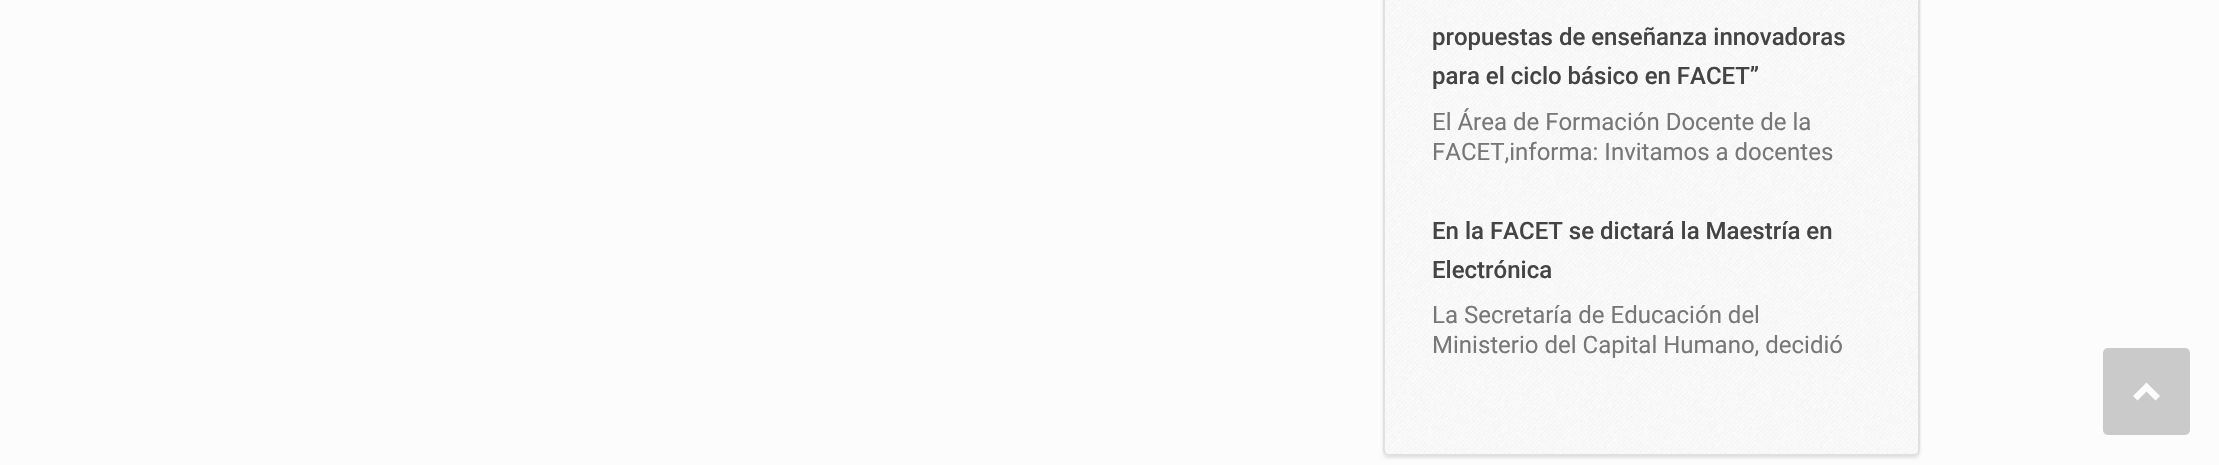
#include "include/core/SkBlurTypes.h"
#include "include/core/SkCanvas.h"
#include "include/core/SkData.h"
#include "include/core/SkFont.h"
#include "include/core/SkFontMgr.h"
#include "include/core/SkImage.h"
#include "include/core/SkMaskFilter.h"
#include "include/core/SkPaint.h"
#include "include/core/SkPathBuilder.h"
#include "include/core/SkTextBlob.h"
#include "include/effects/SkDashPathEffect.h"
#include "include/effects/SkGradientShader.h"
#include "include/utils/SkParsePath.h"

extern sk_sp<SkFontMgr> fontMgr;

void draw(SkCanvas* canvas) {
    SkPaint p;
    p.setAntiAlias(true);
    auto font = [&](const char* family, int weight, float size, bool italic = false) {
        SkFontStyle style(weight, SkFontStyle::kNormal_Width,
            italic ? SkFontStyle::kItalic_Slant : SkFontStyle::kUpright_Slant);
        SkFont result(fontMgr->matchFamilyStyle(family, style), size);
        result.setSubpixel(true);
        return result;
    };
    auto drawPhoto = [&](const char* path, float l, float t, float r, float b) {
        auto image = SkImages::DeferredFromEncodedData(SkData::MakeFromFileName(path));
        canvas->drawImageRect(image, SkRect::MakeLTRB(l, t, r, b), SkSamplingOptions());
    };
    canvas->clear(0xFFFCFCFC);
    p.setColor(0x1A000000);
    p.setMaskFilter(SkMaskFilter::MakeBlur(kNormal_SkBlurStyle, 1.5f));
    canvas->drawRoundRect(SkRect::MakeLTRB(1383, -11, 1920, 458), 6, 6, p);
    p.setMaskFilter(nullptr);
    drawPhoto("media/1.png", 1383, 0, 1920, 456);
    p.setStyle(SkPaint::kStroke_Style);
    p.setStrokeWidth(2);
    p.setColor(0xFFE0E0E0);
    canvas->drawRoundRect(SkRect::MakeLTRB(1384, -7, 1919, 455), 5, 5, p);
    auto font1 = font("Roboto", 500, 24);
    p.setStyle(SkPaint::kFill_Style);
    p.setColor(0xFF444444);
    canvas->drawString("propuestas de enseñanza innovadoras", 1432, 45, font1, p);
    canvas->drawString("para el ciclo básico en FACET”", 1432, 84, font1, p);
    auto font2 = font("Roboto", 400, 24);
    p.setColor(0xFF777777);
    canvas->drawString("El Área de Formación Docente de la", 1432, 130, font2, p);
    canvas->drawString("FACET,informa: Invitamos a docentes", 1432, 160, font2, p);
    p.setColor(0xFF444444);
    canvas->drawString("En la FACET se dictará la Maestría en", 1432, 239, font1, p);
    canvas->drawString("Electrónica", 1432, 278, font1, p);
    p.setColor(0xFF777777);
    canvas->drawString("La Secretaría de Educación del", 1432, 323, font2, p);
    canvas->drawString("Ministerio del Capital Humano, decidió", 1432, 353, font2, p);
    p.setColor(0xFFCACACA);
    canvas->drawRoundRect(SkRect::MakeLTRB(2103, 348, 2190, 435), 5, 5, p);
    p.setColor(0xFFFDFDFD);
    canvas->drawPath(SkPathBuilder().moveTo(2160, 396).lineTo(2146.5f, 382.5f).lineTo(2133, 396).lineTo(2137.5f, 400.5f).lineTo(2146.5f, 391.5f).lineTo(2155.5f, 400.5f).close().detach(), p);
}
